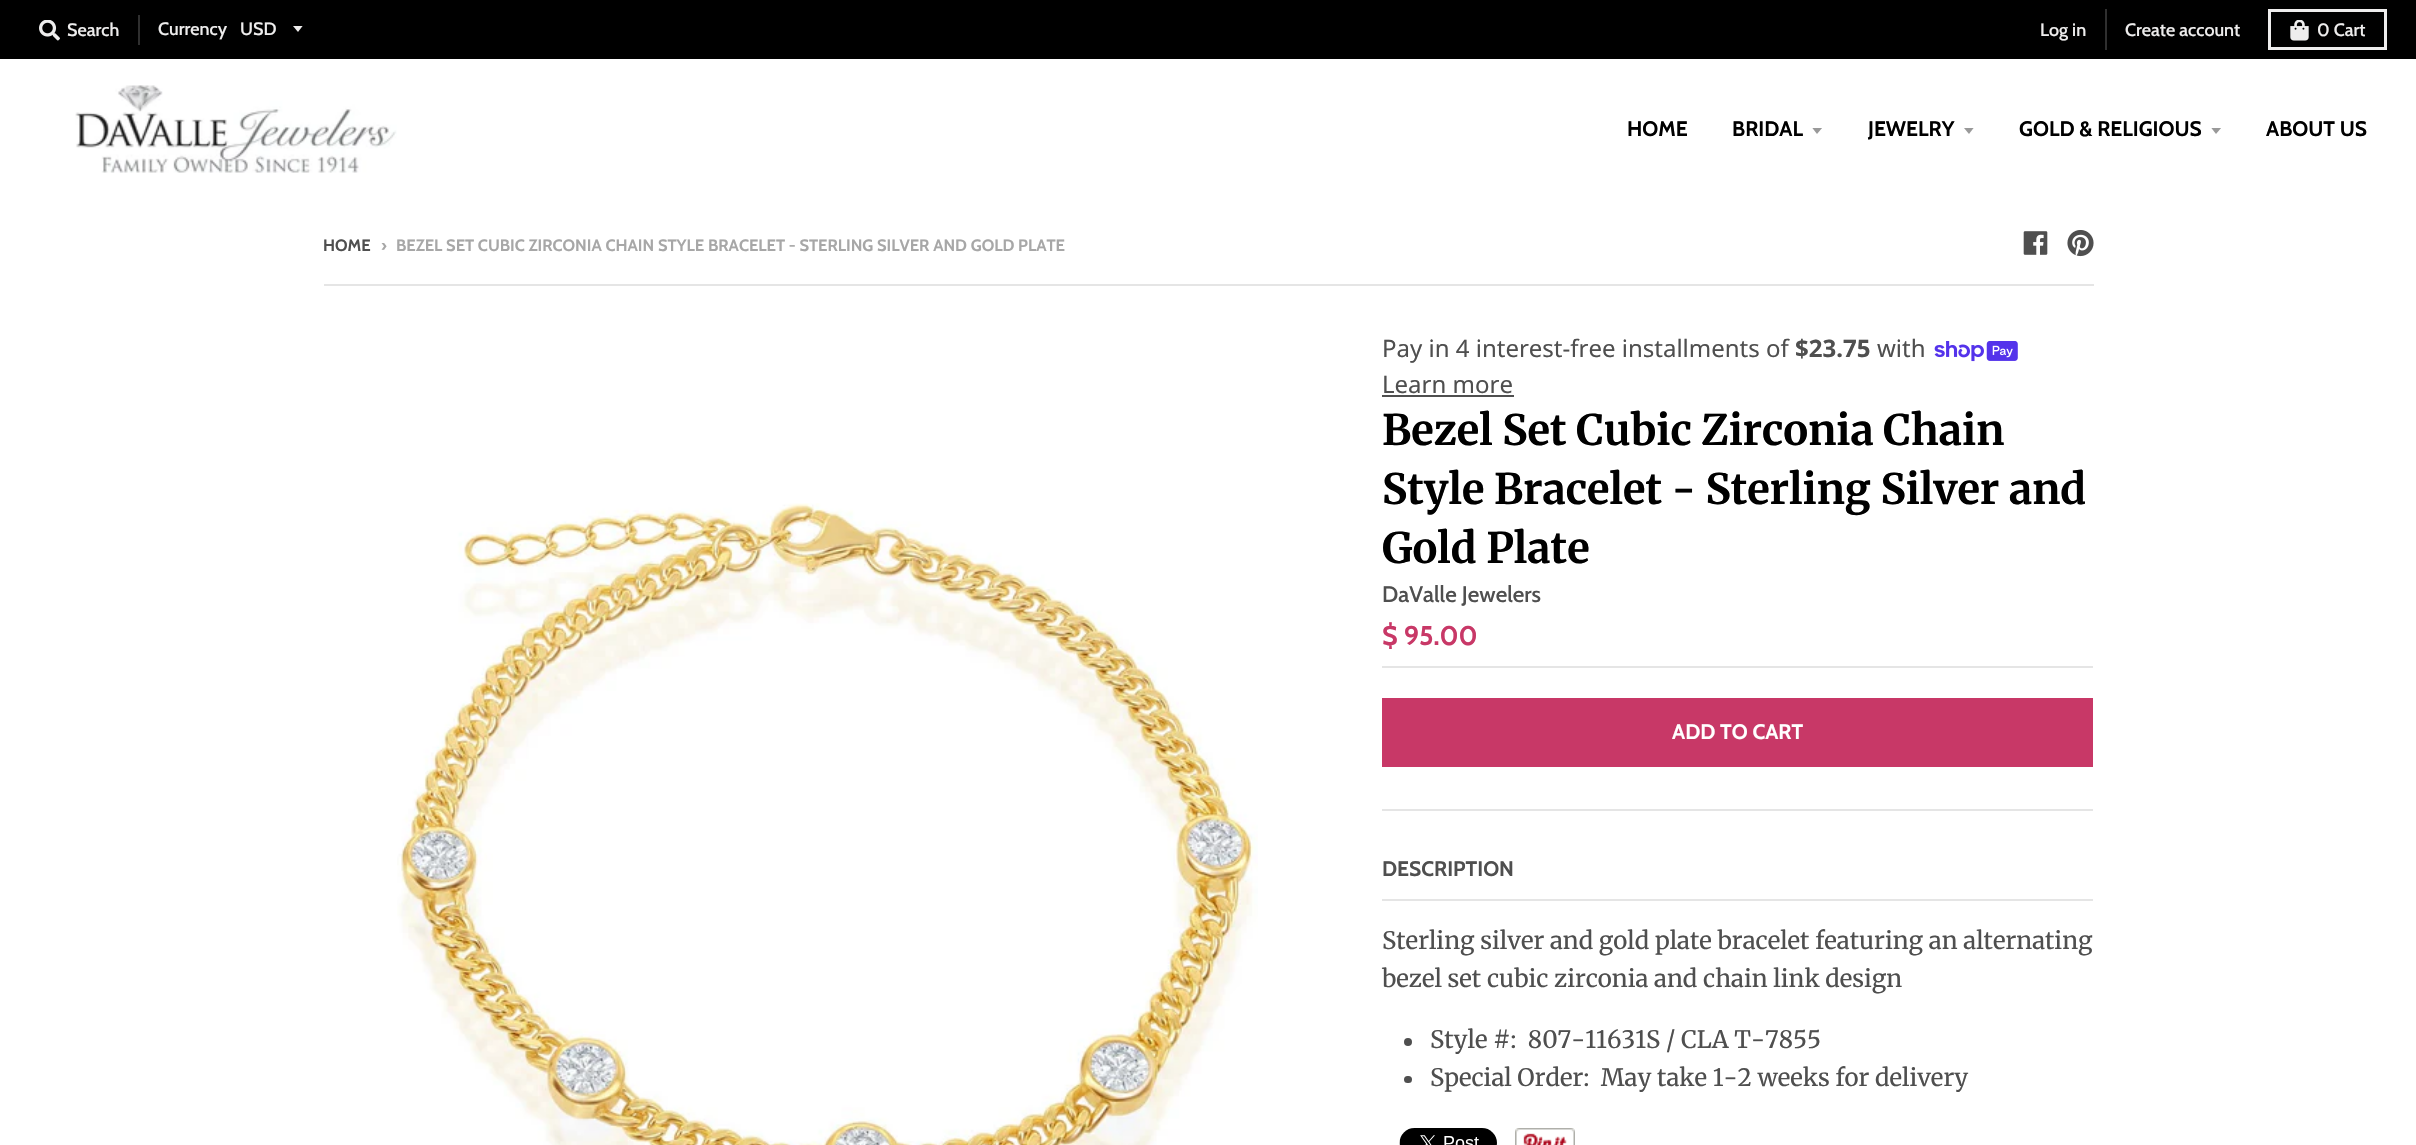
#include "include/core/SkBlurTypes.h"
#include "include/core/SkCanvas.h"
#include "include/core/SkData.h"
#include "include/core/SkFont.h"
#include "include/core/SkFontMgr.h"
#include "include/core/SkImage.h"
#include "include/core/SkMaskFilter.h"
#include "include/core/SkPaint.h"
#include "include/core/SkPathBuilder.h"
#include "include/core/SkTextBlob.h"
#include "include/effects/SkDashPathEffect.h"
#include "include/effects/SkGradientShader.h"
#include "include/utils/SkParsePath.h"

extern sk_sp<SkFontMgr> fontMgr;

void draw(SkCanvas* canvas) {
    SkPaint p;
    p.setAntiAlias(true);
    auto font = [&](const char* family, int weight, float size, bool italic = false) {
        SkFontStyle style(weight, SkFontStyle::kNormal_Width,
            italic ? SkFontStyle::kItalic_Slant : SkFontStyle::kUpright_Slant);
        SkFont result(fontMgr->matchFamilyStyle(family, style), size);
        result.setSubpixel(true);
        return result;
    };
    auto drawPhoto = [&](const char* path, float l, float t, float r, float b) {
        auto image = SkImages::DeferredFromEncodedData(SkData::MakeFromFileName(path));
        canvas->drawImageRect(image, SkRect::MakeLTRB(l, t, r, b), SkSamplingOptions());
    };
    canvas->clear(0xFFFFFFFF);
    p.setColor(0xFF000000);
    canvas->drawRect(SkRect::MakeLTRB(0, 0, 2416, 59), p);
    drawPhoto("media/1.png", 39, 20, 60, 41);
    auto font1 = font("Cabin", 500, 18);
    p.setColor(0xFFEEEDED);
    canvas->drawString("Search", 67, 36, font1, p);
    p.setColor(0xFF2F2F2F);
    canvas->drawRect(SkRect::MakeLTRB(138, 15, 140, 45), p);
    p.setColor(0xFFEEEDED);
    canvas->drawString("Currency", 158, 35, font1, p);
    canvas->save();
    canvas->clipRect(SkRect::MakeLTRB(293, 26, 305, 33));
    canvas->drawPath(SkPathBuilder().moveTo(292.5f, 25.5f).lineTo(298, 32).lineTo(303, 25.5f).close().detach(), p);
    canvas->restore();
    canvas->drawString("USD", 240, 35, font1, p);
    p.setColor(0xFF2F2F2F);
    canvas->drawRect(SkRect::MakeLTRB(2105, 9, 2107, 50), p);
    p.setColor(0xFFEEEDED);
    canvas->drawString("Log in", 2040, 36, font1, p);
    canvas->drawString("Create account", 2125, 36, font1, p);
    p.setStyle(SkPaint::kStroke_Style);
    p.setStrokeWidth(3);
    canvas->drawRect(SkRect::MakeLTRB(2269.5f, 10.5f, 2385.5f, 48.5f), p);
    drawPhoto("media/2.png", 2290, 20, 2309, 41);
    p.setStyle(SkPaint::kFill_Style);
    canvas->drawString("0 Cart", 2317, 36, font1, p);
    drawPhoto("media/3.png", 75, 85, 397, 173);
    auto font2 = font("Cabin", 700, 21);
    p.setColor(0xFF000000);
    canvas->drawString("HOME", 1627, 136, font2, p);
    canvas->drawString("BRIDAL", 1732, 136, font2, p);
    canvas->save();
    canvas->clipRect(SkRect::MakeLTRB(1812, 128, 1824, 135));
    p.setColor(0xFF999999);
    canvas->drawPath(SkPathBuilder().moveTo(1812, 127.5f).lineTo(1817, 134).lineTo(1822.5f, 127.5f).close().detach(), p);
    canvas->restore();
    p.setColor(0xFF000000);
    canvas->drawString("JEWELRY", 1868, 136, font2, p);
    canvas->save();
    canvas->clipRect(SkRect::MakeLTRB(1964, 128, 1976, 135));
    p.setColor(0xFF999999);
    canvas->drawPath(SkPathBuilder().moveTo(1963.5f, 127.5f).lineTo(1969, 134).lineTo(1974, 127.5f).close().detach(), p);
    canvas->restore();
    p.setColor(0xFF000000);
    canvas->drawString("GOLD & RELIGIOUS", 2019, 136, font2, p);
    canvas->save();
    canvas->clipRect(SkRect::MakeLTRB(2211, 128, 2223, 135));
    p.setColor(0xFF999999);
    canvas->drawPath(SkPathBuilder().moveTo(2211, 127.5f).lineTo(2216, 134).lineTo(2221.5f, 127.5f).close().detach(), p);
    canvas->restore();
    p.setColor(0xFF000000);
    canvas->drawString("ABOUT US", 2266, 136, font2, p);
    auto font3 = font("Cabin", 700, 16.5f);
    p.setColor(0xFF4F4F4F);
    canvas->drawString("HOME", 323, 251, font3, p);
    p.setColor(0xFFA7A7A7);
    canvas->drawString("›", 381, 251, font3, p);
    canvas->drawString("BEZEL SET CUBIC ZIRCONIA CHAIN STYLE BRACELET - STERLING SILVER AND GOLD PLATE", 396, 251, font3, p);
    drawPhoto("media/4.png", 2023, 231, 2048, 255);
    drawPhoto("media/5.png", 2067, 230, 2094, 257);
    p.setColor(0xFFE5E5E5);
    canvas->drawRect(SkRect::MakeLTRB(324, 284, 2094, 286), p);
    drawPhoto("media/6.png", 397, 503, 1258, 1145);
    canvas->drawRect(SkRect::MakeLTRB(1382, 809, 2093, 811), p);
    auto font4 = font("Noto Sans", 400, 24);
    p.setColor(0xFF4F4F4F);
    canvas->drawString("Pay in 4 interest-free installments of", 1382, 357, font4, p);
    auto font5 = font("Noto Sans", 700, 24);
    canvas->drawString("$23.75", 1795, 357, font5, p);
    canvas->drawString("with", 1877, 357, font4, p);
    drawPhoto("media/7.png", 1934, 341, 2018, 362);
    canvas->drawString("Learn more", 1382, 393, font4, p);
    canvas->drawRect(SkRect::MakeLTRB(1382, 395, 1514, 397), p);
    auto font6 = font("Merriweather", 700, 42);
    p.setColor(0xFF000000);
    {
        const struct { const char* s; float x, y; } items[] = {
            {"Bezel Set Cubic Zirconia Chain", 1382, 445},
            {"Style Bracelet - Sterling Silver and", 1382, 504},
            {"Gold Plate", 1382, 563},
        };
        for (auto [s, x, y] : items) {
            canvas->drawString(s, x, y, font6, p);
        }
    }
    auto font7 = font("Cabin", 500, 22.5f);
    p.setColor(0xFF4F4F4F);
    canvas->drawString("DaValle Jewelers", 1382, 602, font7, p);
    p.setColor(0xFFE5E5E5);
    canvas->drawRect(SkRect::MakeLTRB(1382, 666, 2093, 668), p);
    auto font8 = font("Cabin", 700, 27);
    p.setColor(0xFFC83867);
    canvas->drawString("$ 95.00", 1382, 645, font8, p);
    canvas->drawRect(SkRect::MakeLTRB(1382, 698, 2093, 767), p);
    p.setColor(0xFFFFFFFF);
    canvas->drawString("ADD TO CART", 1672, 739, font2, p);
    p.setColor(0xFFE5E5E5);
    canvas->drawRect(SkRect::MakeLTRB(1382, 899, 2093, 901), p);
    p.setColor(0xFF4F4F4F);
    canvas->drawString("DESCRIPTION", 1382, 876, font2, p);
    auto font9 = font("Merriweather", 400, 24);
    canvas->drawString("Sterling silver and gold plate bracelet featuring an alternating", 1382, 949, font9, p);
    canvas->drawString("bezel set cubic zirconia and chain link design", 1382, 987, font9, p);
    canvas->drawCircle(1408, 1042, 4, p);
    canvas->drawString("Style #:  807-11631S / CLA T-7855", 1430, 1048, font9, p);
    canvas->drawRoundRect(SkRect::MakeLTRB(1404, 1076, 1412, 1083), 3.5f, 3.5f, p);
    canvas->drawString("Special Order:  May take 1-2 weeks for delivery", 1430, 1086, font9, p);
    drawPhoto("media/8.png", 1399, 1128, 1497, 1145);
    drawPhoto("media/9.png", 1515, 1128, 1575, 1145);
}
